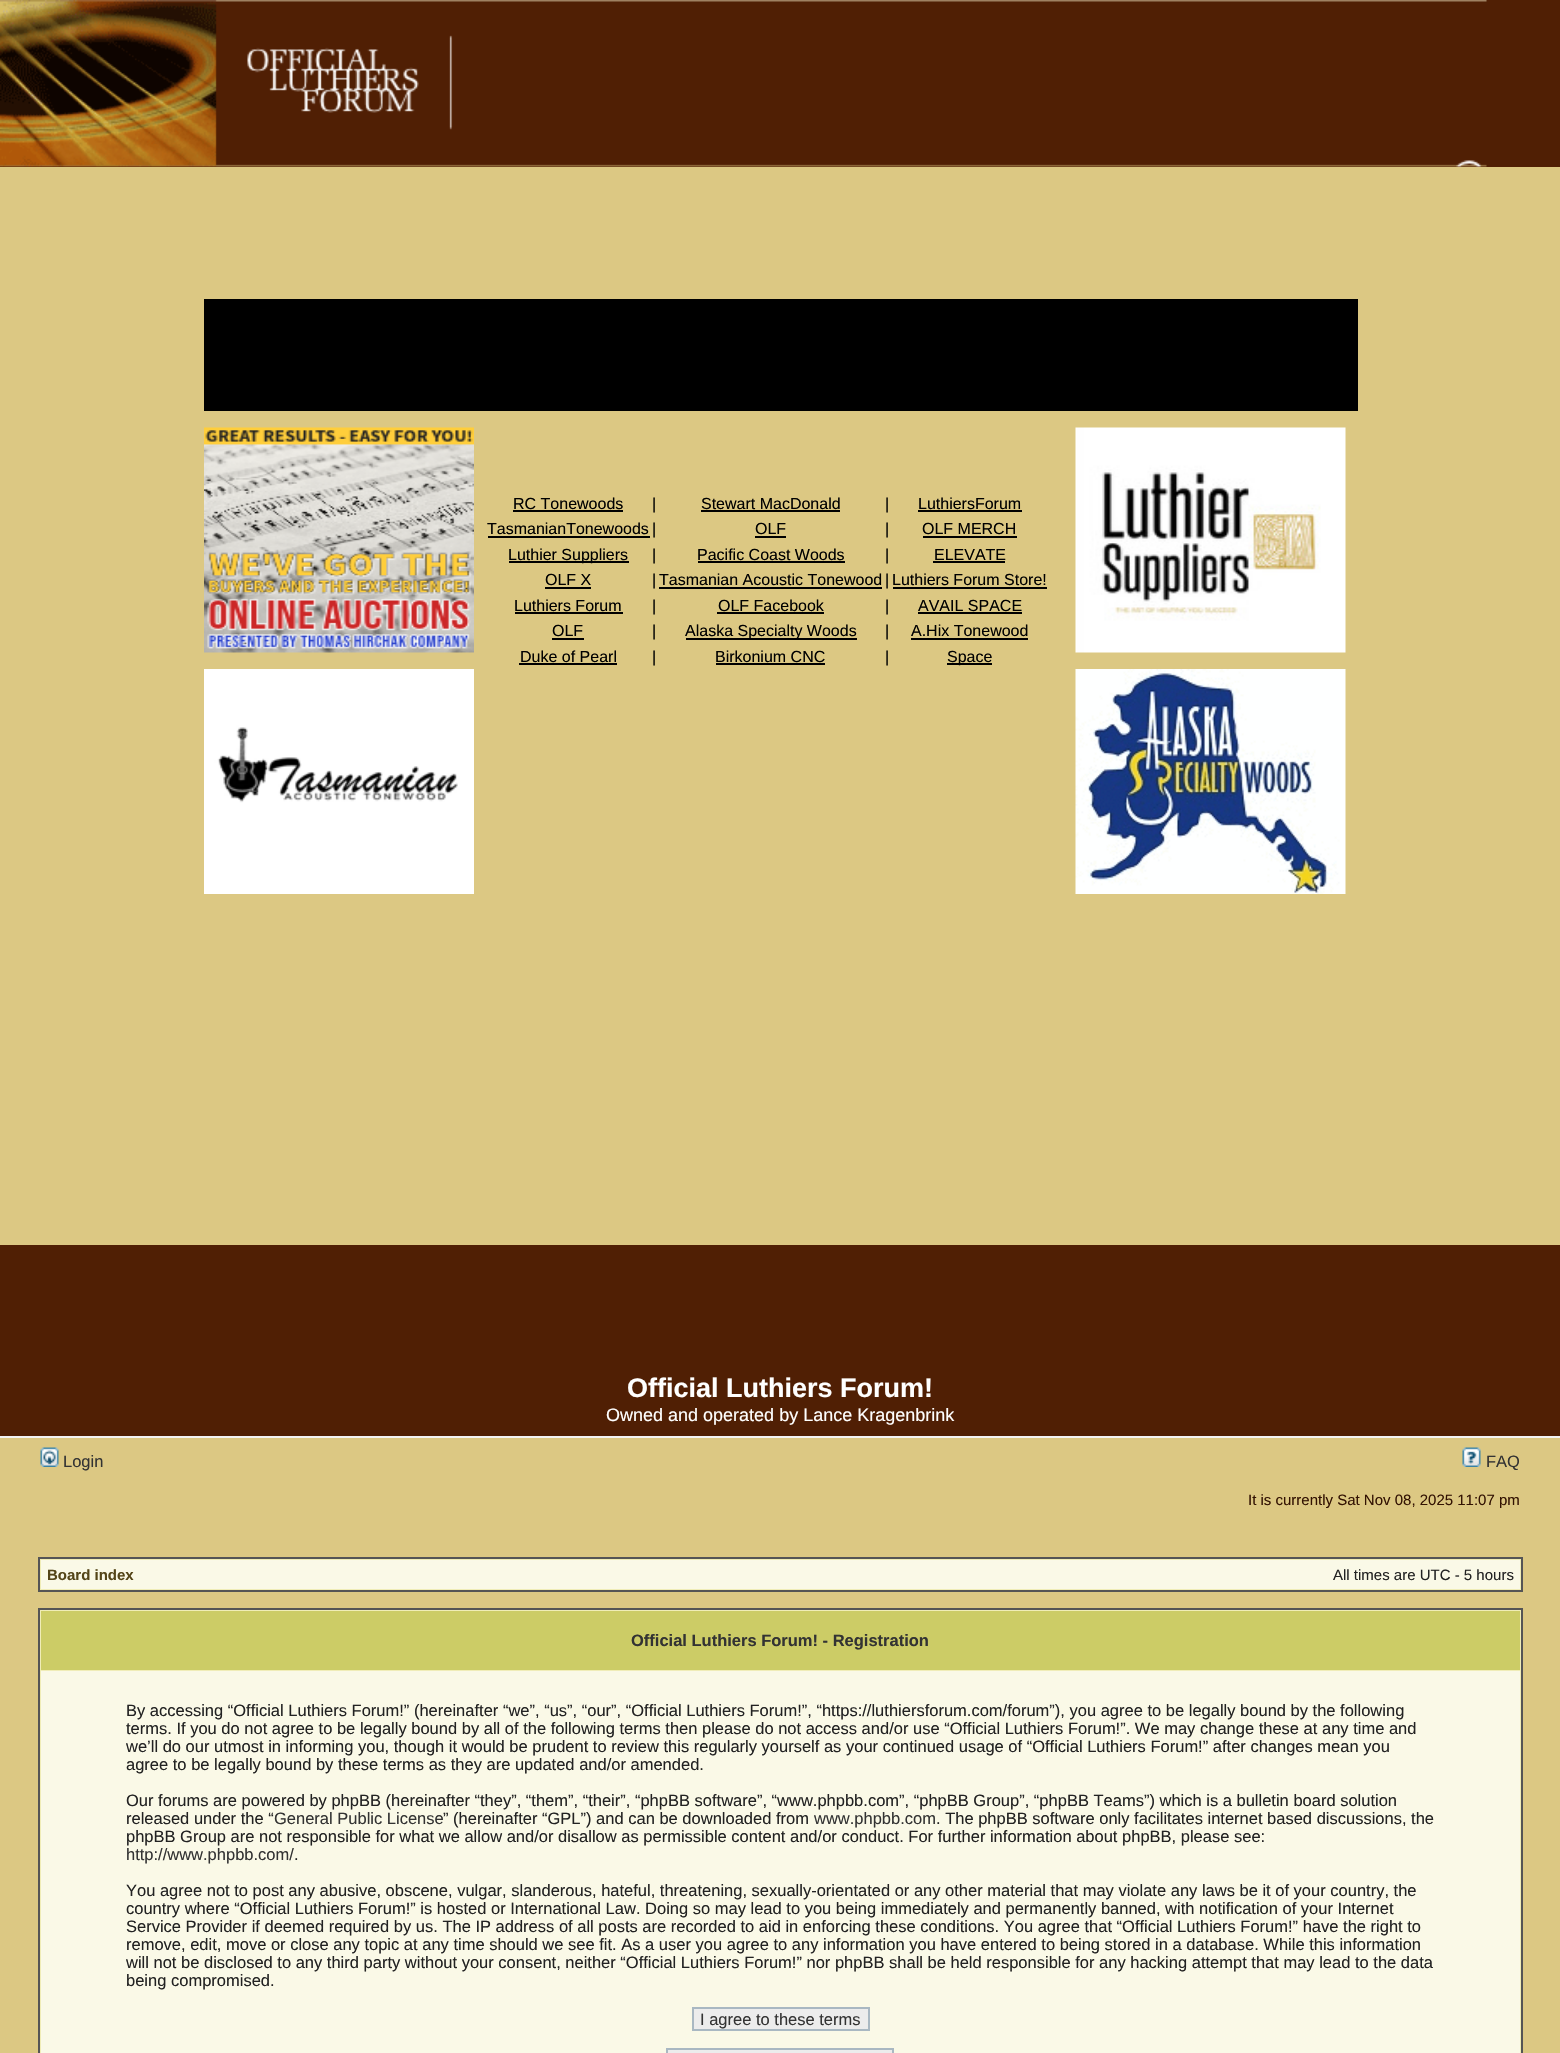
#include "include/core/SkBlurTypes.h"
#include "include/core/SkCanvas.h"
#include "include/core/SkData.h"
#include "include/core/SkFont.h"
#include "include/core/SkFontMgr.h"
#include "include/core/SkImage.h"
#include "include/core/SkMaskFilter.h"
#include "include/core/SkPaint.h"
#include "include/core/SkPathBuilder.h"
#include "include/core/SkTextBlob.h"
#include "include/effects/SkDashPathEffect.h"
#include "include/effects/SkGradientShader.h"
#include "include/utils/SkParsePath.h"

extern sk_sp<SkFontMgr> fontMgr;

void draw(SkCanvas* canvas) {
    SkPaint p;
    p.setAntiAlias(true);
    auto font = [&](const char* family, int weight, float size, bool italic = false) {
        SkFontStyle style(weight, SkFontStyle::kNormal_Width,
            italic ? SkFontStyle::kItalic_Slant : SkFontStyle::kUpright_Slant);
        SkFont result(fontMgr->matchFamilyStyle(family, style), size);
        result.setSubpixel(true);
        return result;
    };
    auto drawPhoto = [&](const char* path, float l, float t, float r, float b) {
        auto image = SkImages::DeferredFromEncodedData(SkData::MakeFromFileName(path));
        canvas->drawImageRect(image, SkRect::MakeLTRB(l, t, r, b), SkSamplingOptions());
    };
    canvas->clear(0xFFDCC883);
    p.setColor(0xFF501F04);
    canvas->drawRect(SkRect::MakeLTRB(0, 0, 1560, 167), p);
    drawPhoto("media/1.png", 0, 0, 1487, 167);
    p.setColor(0xFF000000);
    canvas->drawRect(SkRect::MakeLTRB(204, 299, 1358, 411), p);
    drawPhoto("media/2.png", 204, 427, 474, 653);
    drawPhoto("media/3.png", 204, 669, 474, 894);
    auto font1 = font("Liberation Sans", 400, 16);
    canvas->drawString("RC Tonewoods", 513, 509, font1, p);
    canvas->drawRect(SkRect::MakeLTRB(513, 510, 623, 512), p);
    canvas->drawString("|", 652, 509, font1, p);
    canvas->drawString("Stewart MacDonald", 701, 509, font1, p);
    canvas->drawRect(SkRect::MakeLTRB(701, 510, 840, 512), p);
    canvas->drawString("|", 885, 509, font1, p);
    canvas->drawString("LuthiersForum", 918, 509, font1, p);
    canvas->drawRect(SkRect::MakeLTRB(918, 510, 1022, 512), p);
    canvas->drawString("TasmanianTonewoods", 487, 534, font1, p);
    canvas->drawRect(SkRect::MakeLTRB(488, 536, 650, 538), p);
    canvas->drawString("|", 652, 534, font1, p);
    canvas->drawString("OLF", 755, 534, font1, p);
    canvas->drawRect(SkRect::MakeLTRB(755, 536, 786, 538), p);
    canvas->drawString("|", 885, 534, font1, p);
    canvas->drawString("OLF MERCH", 922, 534, font1, p);
    canvas->drawRect(SkRect::MakeLTRB(923, 536, 1017, 538), p);
    canvas->drawRect(SkRect::MakeLTRB(509, 561, 629, 563), p);
    {
        const struct { const char* s; float x, y; } items[] = {
            {"Luthier Suppliers", 508, 560},
            {"|", 652, 560},
            {"Pacific Coast Woods", 697, 560},
        };
        for (auto [s, x, y] : items) {
            canvas->drawString(s, x, y, font1, p);
        }
    }
    canvas->drawRect(SkRect::MakeLTRB(698, 561, 845, 563), p);
    canvas->drawString("|", 885, 560, font1, p);
    canvas->drawString("ELEVATE", 934, 560, font1, p);
    canvas->drawRect(SkRect::MakeLTRB(933, 561, 1005, 563), p);
    canvas->drawString("OLF X", 545, 585, font1, p);
    canvas->drawRect(SkRect::MakeLTRB(545, 587, 591, 589), p);
    canvas->drawString("|", 652, 585, font1, p);
    canvas->drawString("Tasmanian Acoustic Tonewood", 659, 585, font1, p);
    canvas->drawRect(SkRect::MakeLTRB(659, 587, 882, 589), p);
    canvas->drawString("|", 885, 585, font1, p);
    canvas->drawString("Luthiers Forum Store!", 892, 585, font1, p);
    canvas->drawRect(SkRect::MakeLTRB(893, 587, 1047, 589), p);
    canvas->drawString("Luthiers Forum", 514, 611, font1, p);
    canvas->drawRect(SkRect::MakeLTRB(515, 612, 623, 614), p);
    canvas->drawString("|", 652, 611, font1, p);
    canvas->drawString("OLF Facebook", 718, 611, font1, p);
    canvas->drawRect(SkRect::MakeLTRB(717, 612, 824, 614), p);
    canvas->drawString("|", 885, 611, font1, p);
    canvas->drawString("AVAIL SPACE", 918, 611, font1, p);
    canvas->drawRect(SkRect::MakeLTRB(918, 612, 1022, 614), p);
    canvas->drawString("OLF", 552, 636, font1, p);
    canvas->drawRect(SkRect::MakeLTRB(552, 638, 584, 640), p);
    canvas->drawString("|", 652, 636, font1, p);
    canvas->drawRect(SkRect::MakeLTRB(686, 638, 857, 640), p);
    {
        const struct { const char* s; float x, y; } items[] = {
            {"Alaska Specialty Woods", 685, 636},
            {"|", 885, 636},
            {"A.Hix Tonewood", 911, 636},
        };
        for (auto [s, x, y] : items) {
            canvas->drawString(s, x, y, font1, p);
        }
    }
    canvas->drawRect(SkRect::MakeLTRB(911, 638, 1028, 640), p);
    canvas->drawString("Duke of Pearl", 520, 662, font1, p);
    canvas->drawRect(SkRect::MakeLTRB(519, 663, 617, 665), p);
    canvas->drawString("|", 652, 662, font1, p);
    canvas->drawString("Birkonium CNC", 715, 662, font1, p);
    canvas->drawRect(SkRect::MakeLTRB(716, 663, 825, 665), p);
    canvas->drawString("|", 885, 662, font1, p);
    canvas->drawRect(SkRect::MakeLTRB(947, 663, 992, 665), p);
    canvas->drawString("Space", 947, 662, font1, p);
    drawPhoto("media/4.png", 1075, 427, 1346, 653);
    drawPhoto("media/5.png", 1075, 669, 1346, 894);
    p.setColor(0xFF501F04);
    canvas->drawRect(SkRect::MakeLTRB(0, 1245, 1560, 1436), p);
    p.setColor(0xFFF3F3F3);
    canvas->drawRect(SkRect::MakeLTRB(0, 1436, 1560, 1438), p);
    auto font2 = font("Liberation Sans", 700, 27);
    p.setColor(0xFFFFFFFF);
    canvas->drawString("Official Luthiers Forum!", 627, 1397, font2, p);
    auto font3 = font("Liberation Sans", 400, 18);
    canvas->drawString("Owned and operated by Lance Kragenbrink", 606, 1421, font3, p);
    drawPhoto("media/6.png", 40, 1447, 59, 1467);
    auto font4 = font("Liberation Sans", 400, 16.5f);
    p.setColor(0xFF333333);
    canvas->drawString("Login", 63, 1467, font4, p);
    drawPhoto("media/7.png", 1462, 1447, 1481, 1467);
    canvas->drawString("FAQ", 1486, 1467, font4, p);
    auto font5 = font("Liberation Sans", 400, 15);
    p.setColor(0xFF331302);
    canvas->drawString("It is currently Sat Nov 08, 2025 11:07 pm", 1248, 1505, font5, p);
    p.setColor(0xFFF0EDB7);
    canvas->drawRect(SkRect::MakeLTRB(39, 1558, 1522, 1591), p);
    p.setStyle(SkPaint::kStroke_Style);
    p.setStrokeWidth(2);
    p.setColor(0xFF555555);
    canvas->drawRect(SkRect::MakeLTRB(39, 1558, 1522, 1591), p);
    p.setStyle(SkPaint::kFill_Style);
    p.setColor(0xFFFAF9E7);
    canvas->drawRect(SkRect::MakeLTRB(41, 1560, 1520, 1589), p);
    auto font6 = font("Liberation Sans", 700, 15);
    p.setColor(0xFF544518);
    canvas->drawString("Board index", 47, 1580, font6, p);
    p.setColor(0xFF222222);
    canvas->drawString("All times are UTC - 5 hours", 1333, 1580, font5, p);
    p.setColor(0xFFF0EDB7);
    canvas->drawRect(SkRect::MakeLTRB(39, 1609, 1522, 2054), p);
    p.setStyle(SkPaint::kStroke_Style);
    p.setColor(0xFF555555);
    canvas->drawRect(SkRect::MakeLTRB(39, 1609, 1522, 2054), p);
    p.setStyle(SkPaint::kFill_Style);
    p.setColor(0xFFCCCC66);
    canvas->drawRect(SkRect::MakeLTRB(41, 1611, 1520, 1670), p);
    auto font7 = font("Liberation Sans", 700, 16.5f);
    p.setColor(0xFF333333);
    canvas->drawString("Official Luthiers Forum! - Registration", 631, 1646, font7, p);
    p.setColor(0xFFFAF9E7);
    canvas->drawRect(SkRect::MakeLTRB(41, 1671, 1520, 2053), p);
    p.setColor(0xFF222222);
    {
        const struct { const char* s; float x, y; } items[] = {
            {"By accessing “Official Luthiers Forum!” (hereinafter “we”, “us”, “our”, “Official Luthiers Forum!”, “https://luthiersforum.com/forum”), you agree to be legally bound by the following", 126, 1716},
            {"terms. If you do not agree to be legally bound by all of the following terms then please do not access and/or use “Official Luthiers Forum!”. We may change these at any time and", 126, 1734},
            {"we’ll do our utmost in informing you, though it would be prudent to review this regularly yourself as your continued usage of “Official Luthiers Forum!” after changes mean you", 126, 1752},
            {"agree to be legally bound by these terms as they are updated and/or amended.", 126, 1770},
            {"Our forums are powered by phpBB (hereinafter “they”, “them”, “their”, “phpBB software”, “www.phpbb.com”, “phpBB Group”, “phpBB Teams”) which is a bulletin board solution", 126, 1806},
            {"released under the “", 126, 1824},
        };
        for (auto [s, x, y] : items) {
            canvas->drawString(s, x, y, font4, p);
        }
    }
    p.setColor(0xFF333333);
    canvas->drawString("General Public License", 274, 1824, font4, p);
    p.setColor(0xFF222222);
    canvas->drawString("” (hereinafter “GPL”) and can be downloaded from", 443, 1824, font4, p);
    p.setColor(0xFF333333);
    canvas->drawString("www.phpbb.com", 814, 1824, font4, p);
    p.setColor(0xFF222222);
    canvas->drawString(". The phpBB software only facilitates internet based discussions, the", 936, 1824, font4, p);
    canvas->drawString("phpBB Group are not responsible for what we allow and/or disallow as permissible content and/or conduct. For further information about phpBB, please see:", 126, 1842, font4, p);
    p.setColor(0xFF333333);
    canvas->drawString("http://www.phpbb.com/", 126, 1860, font4, p);
    p.setColor(0xFF222222);
    {
        const struct { const char* s; float x, y; } items[] = {
            {".", 294, 1860},
            {"You agree not to post any abusive, obscene, vulgar, slanderous, hateful, threatening, sexually-orientated or any other material that may violate any laws be it of your country, the", 126, 1896},
            {"country where “Official Luthiers Forum!” is hosted or International Law. Doing so may lead to you being immediately and permanently banned, with notification of your Internet", 126, 1914},
            {"Service Provider if deemed required by us. The IP address of all posts are recorded to aid in enforcing these conditions. You agree that “Official Luthiers Forum!” have the right to", 126, 1932},
            {"remove, edit, move or close any topic at any time should we see fit. As a user you agree to any information you have entered to being stored in a database. While this information", 126, 1950},
            {"will not be disclosed to any third party without your consent, neither “Official Luthiers Forum!” nor phpBB shall be held responsible for any hacking attempt that may lead to the data", 126, 1968},
            {"being compromised.", 126, 1986},
        };
        for (auto [s, x, y] : items) {
            canvas->drawString(s, x, y, font4, p);
        }
    }
    p.setColor(0xFFECECEC);
    canvas->drawRect(SkRect::MakeLTRB(693, 2008, 869, 2030), p);
    p.setStyle(SkPaint::kStroke_Style);
    p.setColor(0xFFA9B8C2);
    canvas->drawRect(SkRect::MakeLTRB(693, 2008, 869, 2030), p);
    p.setStyle(SkPaint::kFill_Style);
    p.setColor(0xFF333333);
    canvas->drawString("I agree to these terms", 700, 2025, font4, p);
    p.setColor(0xFFECECEC);
    canvas->drawRect(SkRect::MakeLTRB(667, 2049, 893, 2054), p);
    p.setStyle(SkPaint::kStroke_Style);
    p.setColor(0xFFA9B8C2);
    canvas->drawRect(SkRect::MakeLTRB(667, 2049, 893, 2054), p);
}
